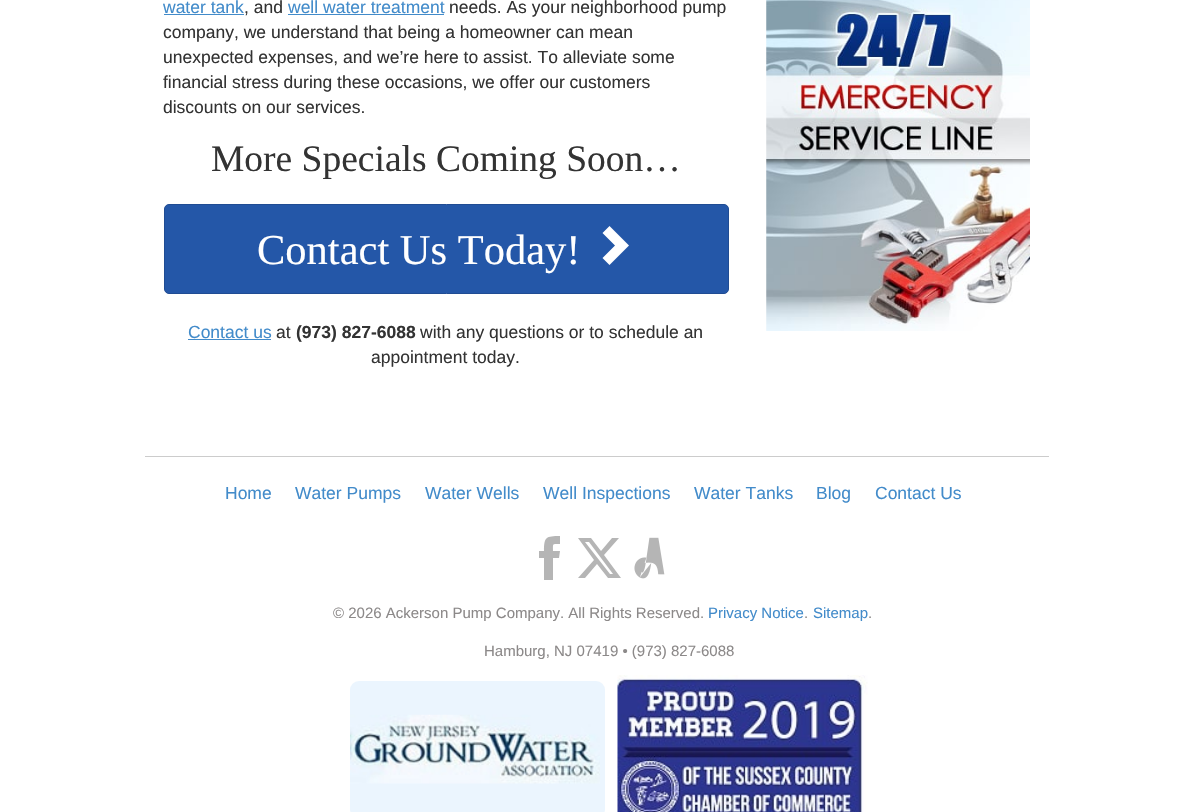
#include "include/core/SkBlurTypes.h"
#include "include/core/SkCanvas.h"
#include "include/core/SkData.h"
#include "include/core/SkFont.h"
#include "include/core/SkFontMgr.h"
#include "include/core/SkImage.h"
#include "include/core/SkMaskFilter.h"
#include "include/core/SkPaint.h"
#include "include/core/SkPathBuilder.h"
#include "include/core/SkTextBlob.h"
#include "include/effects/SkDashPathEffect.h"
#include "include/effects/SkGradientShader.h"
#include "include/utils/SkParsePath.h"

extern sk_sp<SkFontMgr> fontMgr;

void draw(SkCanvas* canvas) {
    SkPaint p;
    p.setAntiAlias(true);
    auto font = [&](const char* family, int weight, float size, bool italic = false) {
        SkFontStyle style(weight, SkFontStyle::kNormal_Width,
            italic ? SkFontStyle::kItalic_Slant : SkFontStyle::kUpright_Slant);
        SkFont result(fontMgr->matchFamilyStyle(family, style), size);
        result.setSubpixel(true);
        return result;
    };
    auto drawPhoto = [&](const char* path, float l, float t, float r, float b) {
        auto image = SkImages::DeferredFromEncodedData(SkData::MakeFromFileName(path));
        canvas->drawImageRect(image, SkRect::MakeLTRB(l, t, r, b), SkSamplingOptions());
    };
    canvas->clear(0xFFFFFFFF);
    auto font1 = font("Liberation Sans", 400, 17.5f);
    p.setColor(0xFF428BCA);
    canvas->drawString("water tank", 163, 13, font1, p);
    canvas->drawRect(SkRect::MakeLTRB(164, 14, 244, 15), p);
    p.setColor(0xFF333333);
    canvas->drawString(", and", 244, 13, font1, p);
    p.setColor(0xFF428BCA);
    canvas->drawString("well water treatment", 288, 13, font1, p);
    canvas->drawRect(SkRect::MakeLTRB(288, 14, 444, 15), p);
    p.setColor(0xFF333333);
    {
        const struct { const char* s; float x, y; } items[] = {
            {"needs. As your neighborhood pump", 449, 13},
            {"company, we understand that being a homeowner can mean", 163, 38},
            {"unexpected expenses, and we’re here to assist. To alleviate some", 163, 63},
            {"financial stress during these occasions, we offer our customers", 163, 88},
            {"discounts on our services.", 163, 113},
        };
        for (auto [s, x, y] : items) {
            canvas->drawString(s, x, y, font1, p);
        }
    }
    auto font2 = font("Liberation Serif", 400, 37.5f);
    canvas->drawString("More Specials Coming Soon…", 211, 171, font2, p);
    p.setColor(0xFF2457A8);
    canvas->drawRoundRect(SkRect::MakeLTRB(164.5f, 204.5f, 728.5f, 293.5f), 4.5f, 4.5f, p);
    p.setStyle(SkPaint::kStroke_Style);
    p.setStrokeWidth(1);
    p.setColor(0xFF204C93);
    canvas->drawRoundRect(SkRect::MakeLTRB(164.5f, 204.5f, 728.5f, 293.5f), 4.5f, 4.5f, p);
    auto font3 = font("Liberation Serif", 400, 42.5f);
    p.setStyle(SkPaint::kFill_Style);
    p.setColor(0xFFFFFFFF);
    canvas->drawString("Contact Us Today!", 257, 264, font3, p);
    canvas->drawPath(SkPathBuilder().moveTo(629, 245.5f).lineTo(609.5f, 265).lineTo(602.5f, 258).lineTo(615, 245.5f).lineTo(602.5f, 233).lineTo(609.5f, 226).close().detach(), p);
    p.setColor(0xFF428BCA);
    canvas->drawString("Contact us", 188, 338, font1, p);
    canvas->drawRect(SkRect::MakeLTRB(188, 339, 271, 340), p);
    p.setColor(0xFF333333);
    canvas->drawString("at", 276, 338, font1, p);
    auto font4 = font("Liberation Sans", 700, 17.5f);
    canvas->drawString("(973) 827-6088", 296, 338, font4, p);
    canvas->drawString("with any questions or to schedule an", 420, 338, font1, p);
    canvas->drawString("appointment today.", 371, 363, font1, p);
    drawPhoto("media/1.png", 766, 0, 1030, 331);
    p.setColor(0xFFCCCCCC);
    canvas->drawRect(SkRect::MakeLTRB(145, 456, 1049, 457), p);
    p.setColor(0xFF428BCA);
    {
        const struct { const char* s; float x, y; } items[] = {
            {"Home", 225, 499},
            {"Water Pumps", 295, 499},
            {"Water Wells", 425, 499},
            {"Well Inspections", 543, 499},
            {"Water Tanks", 694, 499},
            {"Blog", 816, 499},
            {"Contact Us", 875, 499},
        };
        for (auto [s, x, y] : items) {
            canvas->drawString(s, x, y, font1, p);
        }
    }
    p.setColor(0xFFB5B5B5);
    canvas->drawPath(SkPathBuilder().moveTo(553, 580).lineTo(544, 580).lineTo(544, 558).lineTo(539, 558).lineTo(539, 551).lineTo(544, 551).cubicTo(544, 537, 546, 536, 560, 536).lineTo(560, 544).cubicTo(552, 544, 553, 543, 553, 551).lineTo(560, 551).lineTo(559, 558).lineTo(553, 558).close().detach(), p);
    canvas->drawPath(SkPathBuilder().moveTo(612, 538).lineTo(619, 538).lineTo(604, 555).lineTo(621, 578).lineTo(608, 578).lineTo(597, 564).lineTo(585, 578).lineTo(578, 578).lineTo(594, 560).lineTo(578, 538).lineTo(591, 538).lineTo(601, 551).close().moveTo(610, 574).lineTo(613, 574).lineTo(589, 542).lineTo(585, 542).close().detach(), p);
    drawPhoto("media/2.png", 634, 537, 665, 579);
    auto font5 = font("Liberation Sans", 400, 15);
    p.setColor(0xFF8C8989);
    canvas->drawString("© 2026 Ackerson Pump Company. All Rights Reserved.", 333, 618, font5, p);
    p.setColor(0xFF428BCA);
    canvas->drawString("Privacy Notice", 708, 618, font5, p);
    p.setColor(0xFF8C8989);
    canvas->drawString(".", 804, 618, font5, p);
    p.setColor(0xFF428BCA);
    canvas->drawString("Sitemap", 813, 618, font5, p);
    p.setColor(0xFF8C8989);
    canvas->drawString(".", 868, 618, font5, p);
    canvas->drawString("Hamburg, NJ 07419 • (973) 827-6088", 484, 656, font5, p);
    p.setColor(0xFFEBF5FE);
    canvas->drawRoundRect(SkRect::MakeLTRB(350, 681, 605, 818), 9, 9, p);
    drawPhoto("media/3.png", 350, 714, 600, 784);
    drawPhoto("media/4.png", 617, 675, 868, 812);
}
